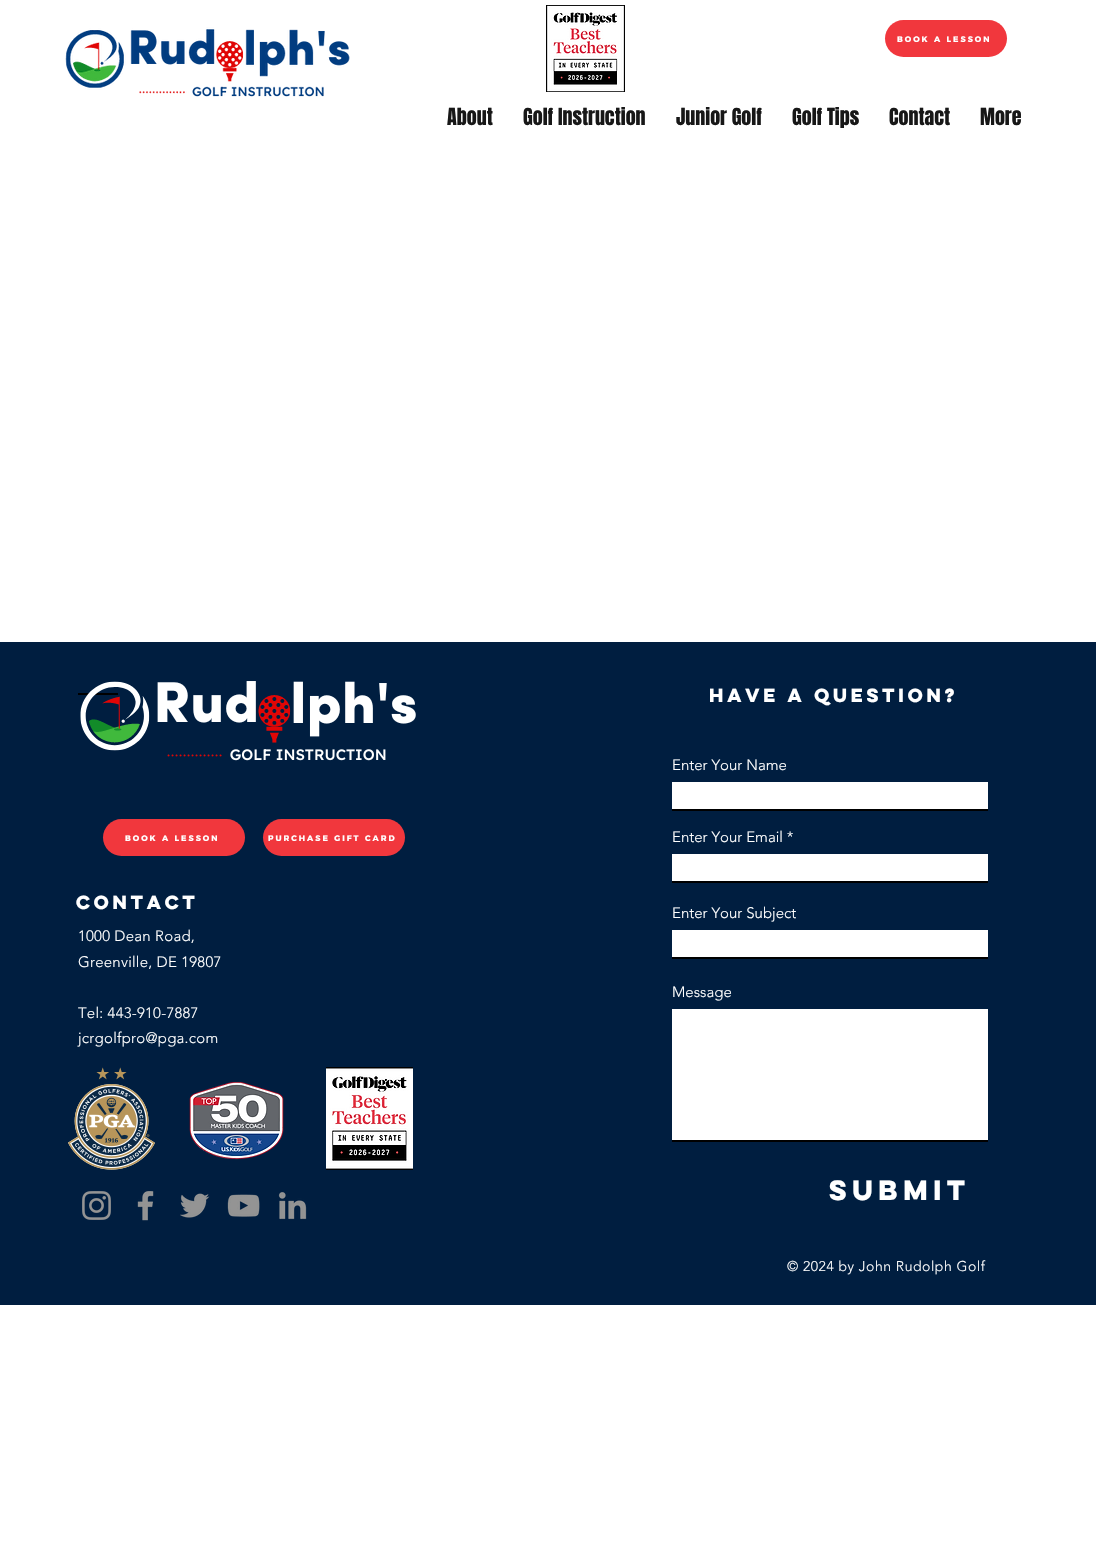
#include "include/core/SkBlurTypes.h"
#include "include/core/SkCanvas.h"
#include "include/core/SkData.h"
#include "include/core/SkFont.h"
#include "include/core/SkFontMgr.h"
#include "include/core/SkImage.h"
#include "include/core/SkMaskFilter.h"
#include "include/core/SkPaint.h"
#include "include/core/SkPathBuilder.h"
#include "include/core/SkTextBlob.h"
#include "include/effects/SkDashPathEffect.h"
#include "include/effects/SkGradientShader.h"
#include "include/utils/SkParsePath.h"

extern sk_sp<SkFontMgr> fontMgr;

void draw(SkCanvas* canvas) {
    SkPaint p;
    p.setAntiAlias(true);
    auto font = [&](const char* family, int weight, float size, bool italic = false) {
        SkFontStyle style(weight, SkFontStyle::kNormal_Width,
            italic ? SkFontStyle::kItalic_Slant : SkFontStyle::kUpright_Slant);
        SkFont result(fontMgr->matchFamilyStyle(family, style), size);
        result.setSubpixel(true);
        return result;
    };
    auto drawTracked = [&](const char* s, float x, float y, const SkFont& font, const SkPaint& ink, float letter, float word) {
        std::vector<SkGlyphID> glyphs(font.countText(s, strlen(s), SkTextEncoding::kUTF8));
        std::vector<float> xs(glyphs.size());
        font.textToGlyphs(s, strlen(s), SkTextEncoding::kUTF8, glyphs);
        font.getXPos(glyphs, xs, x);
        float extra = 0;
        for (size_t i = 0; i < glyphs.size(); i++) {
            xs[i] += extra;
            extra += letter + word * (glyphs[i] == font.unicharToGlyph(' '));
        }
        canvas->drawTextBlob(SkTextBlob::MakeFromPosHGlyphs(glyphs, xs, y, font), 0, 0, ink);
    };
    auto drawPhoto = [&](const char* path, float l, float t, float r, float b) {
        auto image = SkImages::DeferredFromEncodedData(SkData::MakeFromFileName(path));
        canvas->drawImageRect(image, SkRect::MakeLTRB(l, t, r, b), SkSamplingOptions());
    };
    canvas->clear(0xFFFFFFFF);
    drawPhoto("media/1.png", 65, 27, 350, 97);
    drawPhoto("media/2.png", 546, 5, 625, 92);
    p.setColor(0xFFF1373D);
    canvas->drawRoundRect(SkRect::MakeLTRB(885, 20, 1007, 57), 18.5f, 18.5f, p);
    auto font1 = font("Montserrat", 700, 8);
    p.setColor(0xFFFFFFFF);
    drawTracked("BOOK A LESSON", 897, 42, font1, p, 2, 0);
    auto font2 = font("Anton", 400, 20);
    p.setColor(0xFF171717);
    {
        const struct { const char* s; float x, y; } items[] = {
            {"About", 447, 125},
            {"Golf Instruction", 523, 125},
            {"Junior Golf", 676, 125},
            {"Golf Tips", 792, 125},
            {"Contact", 889, 125},
            {"More", 980, 125},
        };
        for (auto [s, x, y] : items) {
            canvas->drawString(s, x, y, font2, p);
        }
    }
    p.setColor(0xFF001E40);
    canvas->drawRect(SkRect::MakeLTRB(0, 642, 1096, 1305), p);
    p.setColor(0xFF000000);
    canvas->drawRect(SkRect::MakeLTRB(78, 693, 118, 695), p);
    drawPhoto("media/3.png", 80, 681, 416, 761);
    auto font3 = font("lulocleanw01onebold", 700, 17);
    p.setColor(0xFFFFFFFF);
    canvas->drawString("hAVE A QUESTION?", 709, 702, font3, p);
    p.setColor(0xFFF1373D);
    canvas->drawRoundRect(SkRect::MakeLTRB(103, 819, 245, 856), 18.5f, 18.5f, p);
    p.setColor(0xFFFFFFFF);
    drawTracked("BOOK A LESSON", 125, 841, font1, p, 2, 0);
    p.setColor(0xFFF1373D);
    canvas->drawRoundRect(SkRect::MakeLTRB(263, 819, 405, 856), 18.5f, 18.5f, p);
    p.setColor(0xFFFFFFFF);
    drawTracked("PURCHASE GIFT CARD", 268, 841, font1, p, 2, 0);
    auto font4 = font("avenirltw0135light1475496", 300, 15);
    canvas->drawString("Enter Your Name", 672, 770, font4, p);
    canvas->drawRect(SkRect::MakeLTRB(672, 782, 988, 809), p);
    p.setColor(0xFF000000);
    canvas->drawRect(SkRect::MakeLTRB(672, 809, 988, 811), p);
    p.setColor(0xFFFFFFFF);
    canvas->drawString("Enter Your Email *", 672, 842, font4, p);
    canvas->drawRect(SkRect::MakeLTRB(672, 854, 988, 881), p);
    p.setColor(0xFF000000);
    canvas->drawRect(SkRect::MakeLTRB(672, 881, 988, 883), p);
    p.setColor(0xFFFFFFFF);
    canvas->drawString("Enter Your Subject", 672, 918, font4, p);
    canvas->drawRect(SkRect::MakeLTRB(672, 930, 988, 957), p);
    p.setColor(0xFF000000);
    canvas->drawRect(SkRect::MakeLTRB(672, 957, 988, 959), p);
    p.setColor(0xFFFFFFFF);
    canvas->drawString("Message", 672, 997, font4, p);
    canvas->drawRect(SkRect::MakeLTRB(672, 1009, 988, 1140), p);
    p.setColor(0xFF000000);
    canvas->drawRect(SkRect::MakeLTRB(672, 1140, 988, 1142), p);
    auto font5 = font("lulocleanw01onebold", 700, 25);
    p.setColor(0xFFFFFFFF);
    canvas->drawString("Submit", 829, 1200, font5, p);
    canvas->drawString("Contact", 76, 909, font3, p);
    {
        const struct { const char* s; float x, y; } items[] = {
            {"1000 Dean Road,", 78, 941},
            {"Greenville, DE 19807", 78, 967},
            {"Tel: 443-910-7887", 78, 1018},
            {"jcrgolfpro@pga.com", 78, 1043},
        };
        for (auto [s, x, y] : items) {
            drawTracked(s, x, y, font4, p, 0.25f, 0);
        }
    }
    drawPhoto("media/4.png", 68, 1067, 155, 1170);
    drawPhoto("media/5.png", 189, 1081, 284, 1160);
    drawPhoto("media/6.png", 326, 1067, 413, 1170);
    drawPhoto("media/7.png", 82, 1191, 111, 1220);
    drawPhoto("media/8.png", 137, 1191, 154, 1221);
    drawPhoto("media/9.png", 180, 1193, 210, 1218);
    drawPhoto("media/10.png", 227, 1194, 260, 1217);
    drawPhoto("media/11.png", 278, 1192, 307, 1220);
    auto font6 = font("avenirltw0135light1475496", 300, 14);
    drawTracked("© 2024 by John Rudolph Golf", 787, 1271, font6, p, 0.55f, 0);
}
